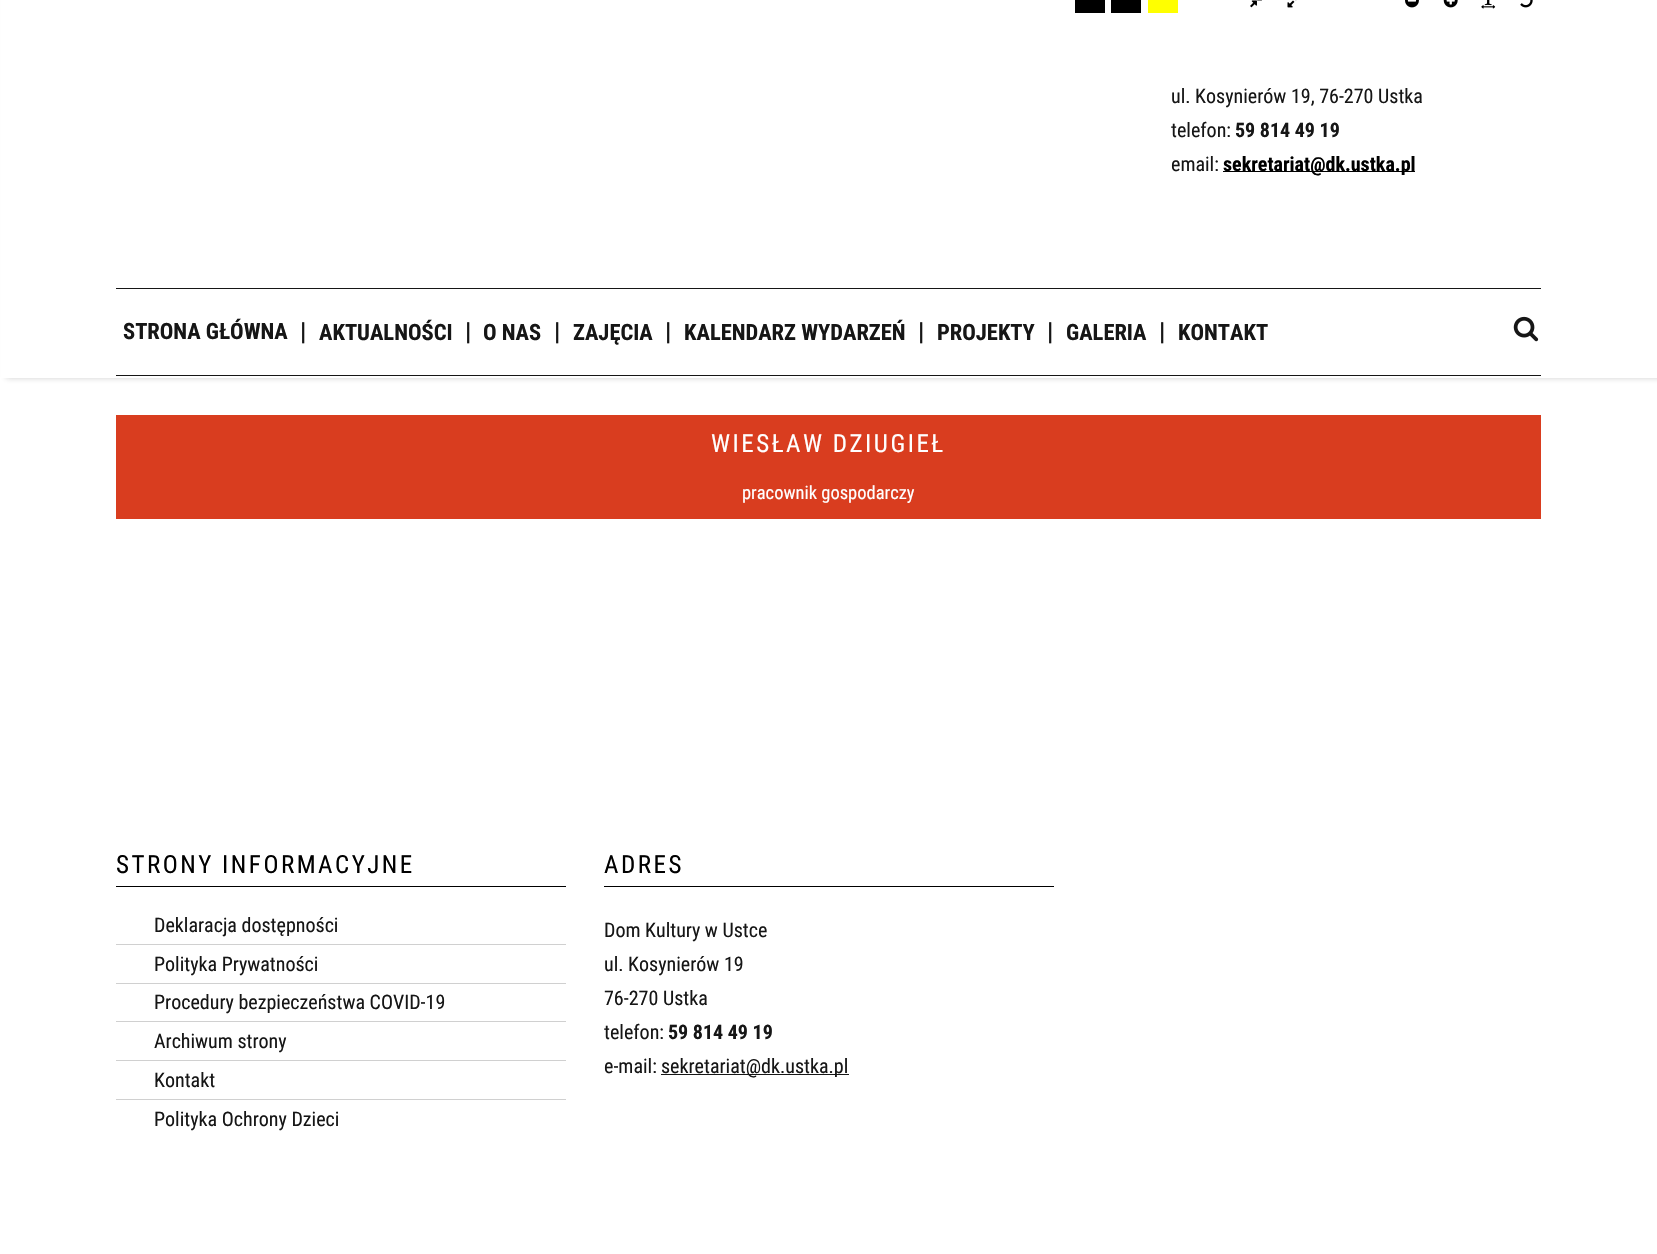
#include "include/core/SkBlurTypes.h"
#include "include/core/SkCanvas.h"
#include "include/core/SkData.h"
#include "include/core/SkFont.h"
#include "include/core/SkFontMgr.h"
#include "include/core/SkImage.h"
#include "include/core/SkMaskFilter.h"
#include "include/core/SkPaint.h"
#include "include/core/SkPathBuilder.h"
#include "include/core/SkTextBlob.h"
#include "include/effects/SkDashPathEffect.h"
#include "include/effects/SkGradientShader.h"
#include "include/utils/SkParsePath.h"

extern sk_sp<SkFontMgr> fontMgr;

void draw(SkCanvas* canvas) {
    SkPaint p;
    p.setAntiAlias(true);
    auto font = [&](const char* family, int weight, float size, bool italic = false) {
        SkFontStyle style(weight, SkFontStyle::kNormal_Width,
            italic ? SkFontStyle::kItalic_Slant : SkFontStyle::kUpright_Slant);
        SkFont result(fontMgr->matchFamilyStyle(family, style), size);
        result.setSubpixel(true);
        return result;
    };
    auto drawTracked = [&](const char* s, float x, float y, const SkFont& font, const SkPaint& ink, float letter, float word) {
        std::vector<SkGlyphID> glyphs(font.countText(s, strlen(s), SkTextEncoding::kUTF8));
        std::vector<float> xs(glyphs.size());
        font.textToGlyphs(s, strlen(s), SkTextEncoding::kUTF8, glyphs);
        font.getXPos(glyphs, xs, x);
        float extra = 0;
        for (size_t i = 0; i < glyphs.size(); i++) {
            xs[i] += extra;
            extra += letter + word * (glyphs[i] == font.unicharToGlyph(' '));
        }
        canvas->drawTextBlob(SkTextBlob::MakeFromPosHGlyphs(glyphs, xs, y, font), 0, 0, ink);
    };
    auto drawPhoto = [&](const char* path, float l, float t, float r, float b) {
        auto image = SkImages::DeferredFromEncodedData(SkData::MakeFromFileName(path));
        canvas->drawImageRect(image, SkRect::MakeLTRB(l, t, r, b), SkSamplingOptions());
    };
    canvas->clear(0xFFFFFFFF);
    p.setColor(0x33161616);
    p.setMaskFilter(SkMaskFilter::MakeBlur(kNormal_SkBlurStyle, 3));
    canvas->drawRect(SkRect::MakeLTRB(6, -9, 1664, 378), p);
    p.setMaskFilter(nullptr);
    {
        const struct { float l, t, r, b; SkColor color; } items[] = {
            {1, 0, 1657, 378, 0xFFFFFFFF},
            {1075, 0, 1105, 13, 0xFF000000},
            {1111, 0, 1141, 13, 0xFF000000},
            {1148, 0, 1178, 13, 0xFFFFFF00},
        };
        for (auto [l, t, r, b, color] : items) {
            p.setColor(color);
            canvas->drawRect(SkRect::MakeLTRB(l, t, r, b), p);
        }
    }
    drawPhoto("media/1.png", 1250, 0, 1262, 8);
    drawPhoto("media/2.png", 1287, 0, 1297, 8);
    drawPhoto("media/3.png", 1405, 0, 1419, 8);
    drawPhoto("media/4.png", 1443, 0, 1458, 8);
    drawPhoto("media/5.png", 1481, 0, 1496, 9);
    drawPhoto("media/6.png", 1520, 0, 1533, 8);
    auto font1 = font("Roboto Condensed", 400, 20);
    p.setColor(0xFF161616);
    canvas->drawString("ul. Kosynierów 19, 76-270 Ustka", 1171, 103, font1, p);
    canvas->drawString("telefon:", 1171, 137, font1, p);
    auto font2 = font("Roboto Condensed", 700, 20);
    canvas->drawString("59 814 49 19", 1235, 137, font2, p);
    canvas->drawString("email:", 1171, 171, font1, p);
    p.setColor(0xFF000000);
    canvas->drawRect(SkRect::MakeLTRB(1223, 171, 1415, 172), p);
    canvas->drawString("sekretariat@dk.ustka.pl", 1223, 171, font2, p);
    p.setColor(0xFF161616);
    canvas->drawRect(SkRect::MakeLTRB(116, 288, 1541, 289), p);
    canvas->drawRect(SkRect::MakeLTRB(116, 375, 1541, 376), p);
    auto font3 = font("Roboto Condensed", 700, 22.5f);
    canvas->drawString("STRONA GŁÓWNA", 123, 339, font3, p);
    auto font4 = font("Roboto Condensed", 700, 25);
    canvas->drawString("|", 300, 340, font4, p);
    canvas->drawString("AKTUALNOŚCI", 319, 340, font3, p);
    canvas->drawString("|", 465, 340, font4, p);
    canvas->drawString("O NAS", 483, 340, font3, p);
    canvas->drawString("|", 554, 340, font4, p);
    canvas->drawString("ZAJĘCIA", 573, 340, font3, p);
    canvas->drawString("|", 665, 340, font4, p);
    canvas->drawString("KALENDARZ WYDARZEŃ", 684, 340, font3, p);
    canvas->drawString("|", 918, 340, font4, p);
    canvas->drawString("PROJEKTY", 937, 340, font3, p);
    canvas->drawString("|", 1047, 340, font4, p);
    canvas->drawString("GALERIA", 1066, 340, font3, p);
    canvas->drawString("|", 1159, 340, font4, p);
    canvas->drawString("KONTAKT", 1178, 340, font3, p);
    drawPhoto("media/7.png", 1513, 316, 1539, 342);
    p.setColor(0xFFD93D1F);
    canvas->drawRect(SkRect::MakeLTRB(116, 415, 1541, 519), p);
    auto font5 = font("Roboto Condensed", 400, 25);
    p.setColor(0xFFFFFFFF);
    drawTracked("WIESŁAW DZIUGIEŁ", 711, 452, font5, p, 2.5f, 0);
    auto font6 = font("Roboto Condensed", 400, 18.5f);
    canvas->drawString("pracownik gospodarczy", 742, 499, font6, p);
    p.setColor(0xFF000000);
    canvas->drawRect(SkRect::MakeLTRB(116, 886, 566, 887), p);
    drawTracked("STRONY INFORMACYJNE", 116, 873, font5, p, 2.5f, 0);
    p.setColor(0xFF161616);
    canvas->drawString("Deklaracja dostępności", 154, 932, font1, p);
    p.setColor(0xFFD0D0D0);
    canvas->drawRect(SkRect::MakeLTRB(116, 944, 566, 945), p);
    p.setColor(0xFF161616);
    canvas->drawString("Polityka Prywatności", 154, 971, font1, p);
    p.setColor(0xFFD0D0D0);
    canvas->drawRect(SkRect::MakeLTRB(116, 983, 566, 984), p);
    p.setColor(0xFF161616);
    canvas->drawString("Procedury bezpieczeństwa COVID-19", 154, 1009, font1, p);
    p.setColor(0xFFD0D0D0);
    canvas->drawRect(SkRect::MakeLTRB(116, 1021, 566, 1022), p);
    p.setColor(0xFF161616);
    canvas->drawString("Archiwum strony", 154, 1048, font1, p);
    p.setColor(0xFFD0D0D0);
    canvas->drawRect(SkRect::MakeLTRB(116, 1060, 566, 1061), p);
    p.setColor(0xFF161616);
    canvas->drawString("Kontakt", 154, 1087, font1, p);
    p.setColor(0xFFD0D0D0);
    canvas->drawRect(SkRect::MakeLTRB(116, 1099, 566, 1100), p);
    p.setColor(0xFF161616);
    canvas->drawString("Polityka Ochrony Dzieci", 154, 1126, font1, p);
    p.setColor(0xFF000000);
    canvas->drawRect(SkRect::MakeLTRB(604, 886, 1054, 887), p);
    drawTracked("ADRES", 604, 873, font5, p, 2.5f, 0);
    p.setColor(0xFF161616);
    {
        const struct { const char* s; float x, y; } items[] = {
            {"Dom Kultury w Ustce", 604, 937},
            {"ul. Kosynierów 19", 604, 971},
            {"76-270 Ustka", 604, 1005},
            {"telefon:", 604, 1039},
        };
        for (auto [s, x, y] : items) {
            canvas->drawString(s, x, y, font1, p);
        }
    }
    canvas->drawString("59 814 49 19", 668, 1039, font2, p);
    canvas->drawString("e-mail:", 604, 1073, font1, p);
    canvas->drawRect(SkRect::MakeLTRB(661, 1074, 849, 1075), p);
    canvas->drawString("sekretariat@dk.ustka.pl", 661, 1073, font1, p);
}
